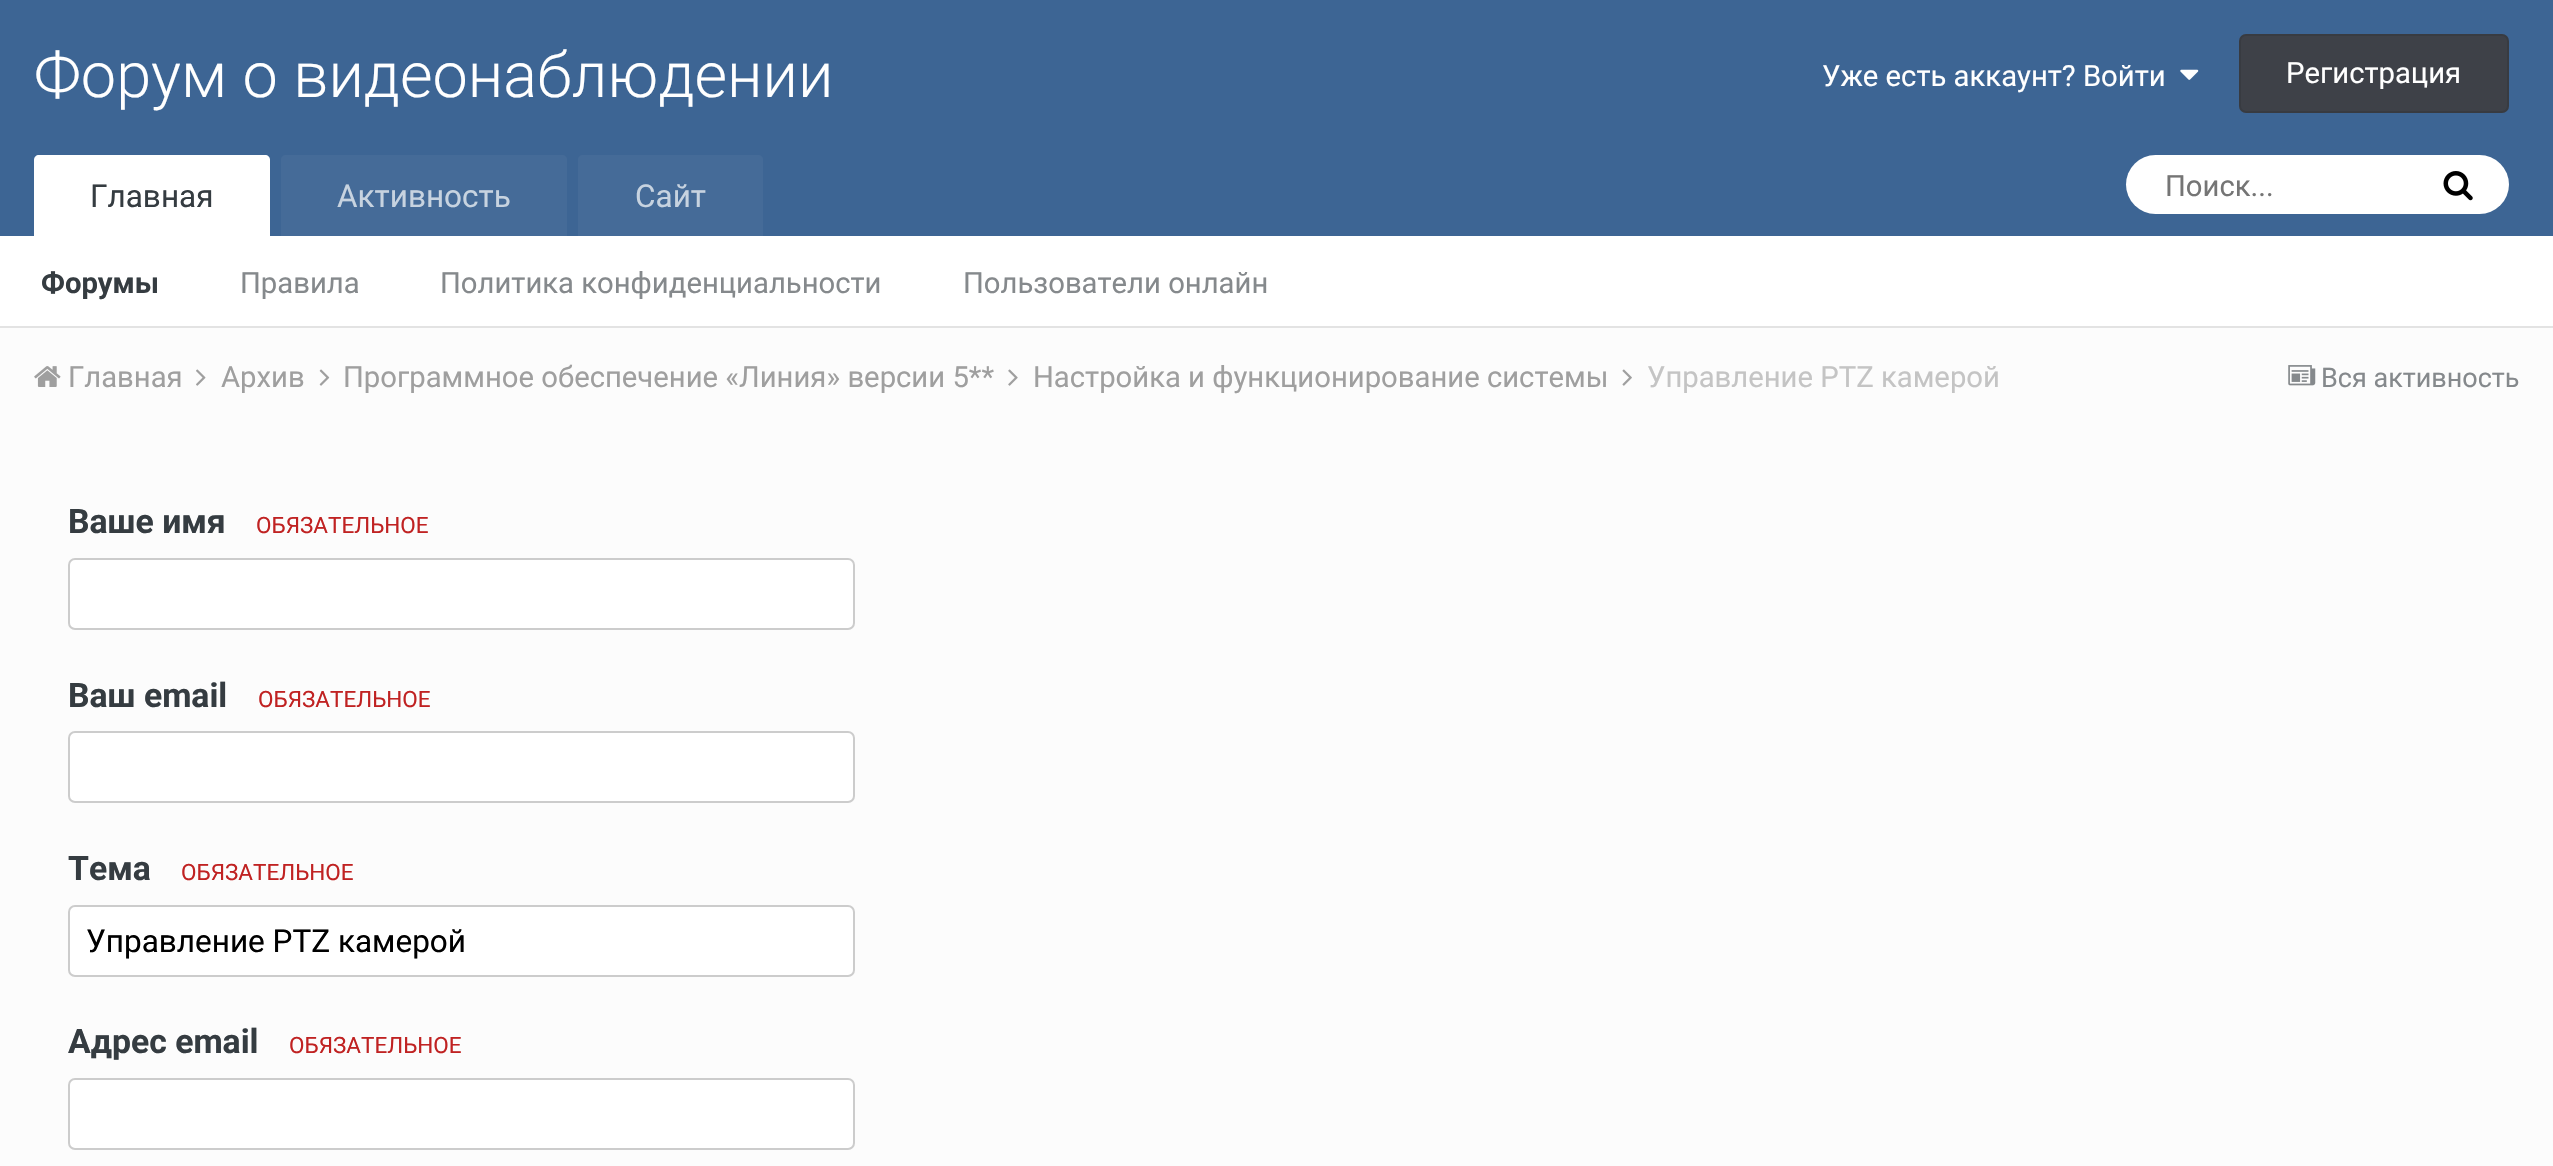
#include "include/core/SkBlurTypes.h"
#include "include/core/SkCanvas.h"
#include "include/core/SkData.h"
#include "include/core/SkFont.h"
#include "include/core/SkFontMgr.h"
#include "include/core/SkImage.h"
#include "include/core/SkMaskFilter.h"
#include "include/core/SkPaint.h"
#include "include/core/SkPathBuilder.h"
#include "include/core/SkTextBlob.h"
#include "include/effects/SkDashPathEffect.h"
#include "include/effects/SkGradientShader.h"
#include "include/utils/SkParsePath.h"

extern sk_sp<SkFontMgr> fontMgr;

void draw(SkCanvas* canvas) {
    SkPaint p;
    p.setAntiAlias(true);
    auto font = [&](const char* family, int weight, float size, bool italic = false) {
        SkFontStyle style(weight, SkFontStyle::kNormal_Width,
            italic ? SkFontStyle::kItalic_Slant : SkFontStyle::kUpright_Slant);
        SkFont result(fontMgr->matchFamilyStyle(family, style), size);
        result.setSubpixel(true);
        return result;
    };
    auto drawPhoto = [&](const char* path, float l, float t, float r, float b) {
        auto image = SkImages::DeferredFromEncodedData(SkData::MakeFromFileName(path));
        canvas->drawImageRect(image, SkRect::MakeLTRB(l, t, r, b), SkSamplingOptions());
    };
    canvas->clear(0xFFFCFCFC);
    p.setColor(0xFFE3E3E3);
    canvas->drawRect(SkRect::MakeLTRB(0, 326, 2553, 328), p);
    p.setColor(0xFF3D6594);
    canvas->drawRect(SkRect::MakeLTRB(0, 0, 2553, 236), p);
    auto font1 = font("Roboto", 300, 63);
    p.setColor(0xFFFFFFFF);
    canvas->drawString("Форум о видеонаблюдении", 34, 97, font1, p);
    auto font2 = font("Roboto", 400, 29.25f);
    canvas->drawString("Уже есть аккаунт? Войти", 1822, 86, font2, p);
    drawPhoto("media/1.png", 2180, 69, 2199, 80);
    p.setColor(0xFF3E4148);
    canvas->drawRoundRect(SkRect::MakeLTRB(2239, 34, 2509, 113), 7, 7, p);
    p.setStyle(SkPaint::kStroke_Style);
    p.setStrokeWidth(2);
    p.setColor(0x1A000000);
    canvas->drawRoundRect(SkRect::MakeLTRB(2240, 35, 2508, 112), 6, 6, p);
    p.setStyle(SkPaint::kFill_Style);
    p.setColor(0xFFFFFFFF);
    canvas->drawString("Регистрация", 2286, 83, font2, p);
    canvas->drawRect(SkRect::MakeLTRB(0, 236, 2553, 326), p);
    canvas->drawPath(SkPathBuilder().moveTo(39, 155).lineTo(265, 155).cubicTo(268, 155, 270, 157, 270, 160).lineTo(270, 236).lineTo(34, 236).lineTo(34, 160).cubicTo(34, 157, 36, 155, 39, 155).close().detach(), p);
    auto font3 = font("Roboto", 400, 31.5f);
    p.setColor(0xFF353C41);
    canvas->drawString("Главная", 90, 207, font3, p);
    auto font4 = font("Roboto", 700, 29.25f);
    canvas->drawString("Форумы", 41, 293, font4, p);
    p.setColor(0xFF85898C);
    {
        const struct { const char* s; float x, y; } items[] = {
            {"Правила", 240, 293},
            {"Политика конфиденциальности", 440, 293},
            {"Пользователи онлайн", 963, 293},
        };
        for (auto [s, x, y] : items) {
            canvas->drawString(s, x, y, font2, p);
        }
    }
    p.setColor(0xFF456B98);
    canvas->drawPath(SkPathBuilder().moveTo(286, 155).lineTo(562, 155).cubicTo(565, 155, 567, 157, 567, 160).lineTo(567, 236).lineTo(281, 236).lineTo(281, 160).cubicTo(281, 157, 283, 155, 286, 155).close().detach(), p);
    p.setColor(0xFFC7D3E0);
    canvas->drawString("Активность", 337, 207, font3, p);
    p.setColor(0xFF456B98);
    canvas->drawPath(SkPathBuilder().moveTo(583, 155).lineTo(758, 155).cubicTo(761, 155, 763, 157, 763, 160).lineTo(763, 236).lineTo(578, 236).lineTo(578, 160).cubicTo(578, 157, 580, 155, 583, 155).close().detach(), p);
    p.setColor(0xFFC7D3E0);
    canvas->drawString("Сайт", 635, 207, font3, p);
    p.setColor(0xFFFFFFFF);
    canvas->drawRoundRect(SkRect::MakeLTRB(2126, 155, 2509, 214), 29.5f, 29.5f, p);
    p.setColor(0xFF757575);
    canvas->drawString("Поиск...", 2165, 196, font2, p);
    drawPhoto("media/2.png", 2443, 171, 2473, 201);
    drawPhoto("media/3.png", 34, 366, 61, 387);
    p.setColor(0xFF9F9F9F);
    canvas->drawString("Главная", 68, 387, font2, p);
    drawPhoto("media/4.png", 196, 369, 206, 386);
    canvas->drawString("Архив", 221, 387, font2, p);
    drawPhoto("media/5.png", 319, 369, 330, 386);
    canvas->drawString("Программное обеспечение «Линия» версии 5**", 343, 387, font2, p);
    drawPhoto("media/6.png", 1008, 369, 1018, 386);
    canvas->drawString("Настройка и функционирование системы", 1033, 387, font2, p);
    drawPhoto("media/7.png", 1622, 369, 1632, 386);
    p.setColor(0xFFC4C4C4);
    canvas->drawString("Управление PTZ камерой", 1647, 387, font2, p);
    drawPhoto("media/8.png", 2288, 365, 2316, 386);
    auto font5 = font("Roboto", 400, 27);
    p.setColor(0xFF85898C);
    canvas->drawString("Вся активность", 2321, 387, font5, p);
    auto font6 = font("Roboto", 700, 33.75f);
    p.setColor(0xFF353C41);
    canvas->drawString("Ваше имя", 68, 533, font6, p);
    auto font7 = font("Roboto", 400, 22.5f);
    p.setColor(0xFFC02222);
    canvas->drawString("ОБЯЗАТЕЛЬНОЕ", 256, 533, font7, p);
    p.setColor(0xFFFFFFFF);
    canvas->drawRoundRect(SkRect::MakeLTRB(69, 559, 854, 629), 6, 6, p);
    p.setStyle(SkPaint::kStroke_Style);
    p.setColor(0xFFCCCCCC);
    canvas->drawRoundRect(SkRect::MakeLTRB(69, 559, 854, 629), 6, 6, p);
    p.setStyle(SkPaint::kFill_Style);
    p.setColor(0xFF353C41);
    canvas->drawString("Ваш email", 68, 707, font6, p);
    p.setColor(0xFFC02222);
    canvas->drawString("ОБЯЗАТЕЛЬНОЕ", 258, 707, font7, p);
    p.setColor(0xFFFFFFFF);
    canvas->drawRoundRect(SkRect::MakeLTRB(69, 732, 854, 802), 6, 6, p);
    p.setStyle(SkPaint::kStroke_Style);
    p.setColor(0xFFCCCCCC);
    canvas->drawRoundRect(SkRect::MakeLTRB(69, 732, 854, 802), 6, 6, p);
    p.setStyle(SkPaint::kFill_Style);
    p.setColor(0xFF353C41);
    canvas->drawString("Тема", 68, 880, font6, p);
    p.setColor(0xFFC02222);
    canvas->drawString("ОБЯЗАТЕЛЬНОЕ", 181, 880, font7, p);
    p.setColor(0xFFFFFFFF);
    canvas->drawRoundRect(SkRect::MakeLTRB(69, 906, 854, 976), 6, 6, p);
    p.setStyle(SkPaint::kStroke_Style);
    p.setColor(0xFFCCCCCC);
    canvas->drawRoundRect(SkRect::MakeLTRB(69, 906, 854, 976), 6, 6, p);
    p.setStyle(SkPaint::kFill_Style);
    p.setColor(0xFF000000);
    canvas->drawString("Управление PTZ камерой", 86, 952, font3, p);
    p.setColor(0xFF353C41);
    canvas->drawString("Адрес email", 68, 1053, font6, p);
    p.setColor(0xFFC02222);
    canvas->drawString("ОБЯЗАТЕЛЬНОЕ", 289, 1053, font7, p);
    p.setColor(0xFFFFFFFF);
    canvas->drawRoundRect(SkRect::MakeLTRB(69, 1079, 854, 1149), 6, 6, p);
    p.setStyle(SkPaint::kStroke_Style);
    p.setColor(0xFFCCCCCC);
    canvas->drawRoundRect(SkRect::MakeLTRB(69, 1079, 854, 1149), 6, 6, p);
}
